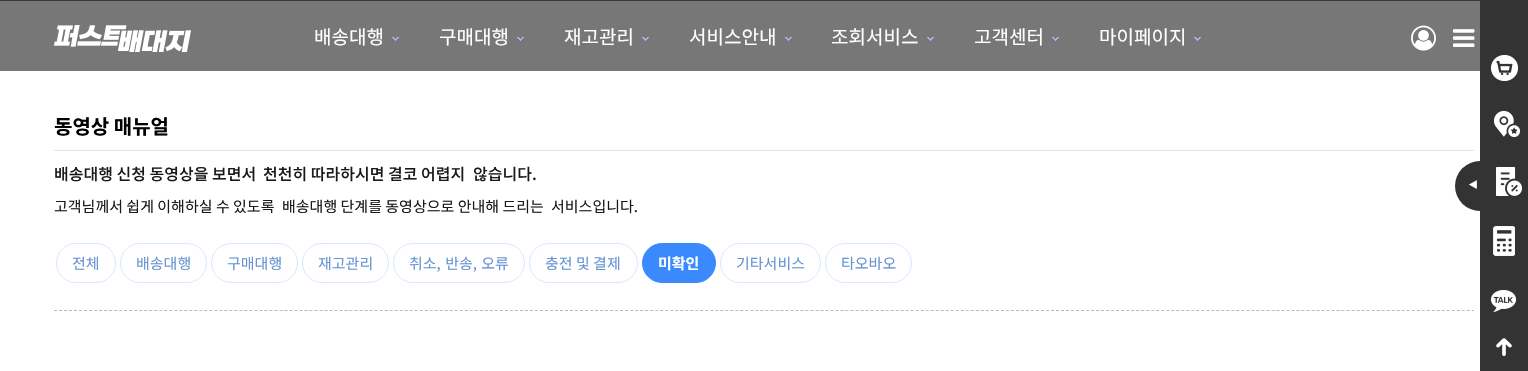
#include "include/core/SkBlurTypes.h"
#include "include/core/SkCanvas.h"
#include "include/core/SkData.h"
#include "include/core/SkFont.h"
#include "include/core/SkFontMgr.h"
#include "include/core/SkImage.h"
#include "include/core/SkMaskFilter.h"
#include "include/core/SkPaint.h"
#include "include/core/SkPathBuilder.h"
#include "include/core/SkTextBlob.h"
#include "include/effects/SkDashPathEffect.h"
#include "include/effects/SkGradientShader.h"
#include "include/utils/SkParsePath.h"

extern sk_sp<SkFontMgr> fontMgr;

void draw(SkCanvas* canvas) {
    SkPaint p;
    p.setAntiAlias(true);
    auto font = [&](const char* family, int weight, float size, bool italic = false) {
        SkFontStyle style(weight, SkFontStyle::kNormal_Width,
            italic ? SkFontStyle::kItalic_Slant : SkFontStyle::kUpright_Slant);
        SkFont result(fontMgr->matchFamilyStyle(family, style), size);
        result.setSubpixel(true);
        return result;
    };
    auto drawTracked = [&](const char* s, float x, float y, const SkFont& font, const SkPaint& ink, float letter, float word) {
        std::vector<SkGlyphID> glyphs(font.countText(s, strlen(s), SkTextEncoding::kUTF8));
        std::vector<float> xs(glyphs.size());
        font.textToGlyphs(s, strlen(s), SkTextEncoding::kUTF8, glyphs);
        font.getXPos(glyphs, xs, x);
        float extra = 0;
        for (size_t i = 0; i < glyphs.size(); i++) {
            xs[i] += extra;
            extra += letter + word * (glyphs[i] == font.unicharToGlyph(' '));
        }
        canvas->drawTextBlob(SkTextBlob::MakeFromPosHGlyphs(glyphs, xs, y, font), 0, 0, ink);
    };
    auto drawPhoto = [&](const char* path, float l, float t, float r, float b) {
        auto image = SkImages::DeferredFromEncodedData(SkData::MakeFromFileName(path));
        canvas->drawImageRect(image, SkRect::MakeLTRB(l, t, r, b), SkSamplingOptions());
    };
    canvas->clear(0xFFFFFFFF);
    p.setColor(0xFF777777);
    canvas->drawRect(SkRect::MakeLTRB(0, 1, 1480, 71), p);
    p.setColor(0xFF383838);
    canvas->drawRect(SkRect::MakeLTRB(0, 0, 1480, 1), p);
    drawPhoto("media/1.png", 54, 25, 191, 52);
    auto font1 = font("Noto Sans KR", 400, 19);
    p.setColor(0xFFFFFFFF);
    canvas->drawString("배송대행", 314, 44, font1, p);
    drawPhoto("media/2.png", 392, 37, 399, 41);
    canvas->drawString("구매대행", 439, 44, font1, p);
    drawPhoto("media/2.png", 517, 37, 524, 41);
    canvas->drawString("재고관리", 564, 44, font1, p);
    drawPhoto("media/2.png", 642, 37, 649, 41);
    canvas->drawString("서비스안내", 689, 44, font1, p);
    drawPhoto("media/2.png", 785, 37, 792, 41);
    canvas->drawString("조회서비스", 831, 44, font1, p);
    drawPhoto("media/2.png", 927, 37, 934, 41);
    canvas->drawString("고객센터", 974, 44, font1, p);
    drawPhoto("media/2.png", 1052, 37, 1059, 41);
    canvas->drawString("마이페이지", 1099, 44, font1, p);
    drawPhoto("media/2.png", 1194, 37, 1201, 41);
    drawPhoto("media/3.png", 1411, 25, 1436, 51);
    drawPhoto("media/4.png", 1453, 29, 1475, 47);
    p.setColor(0xFF333333);
    canvas->drawCircle(1480, 186, 25, p);
    canvas->drawRect(SkRect::MakeLTRB(1480, 0, 1528, 371), p);
    drawPhoto("media/5.png", 1491, 55, 1518, 81);
    drawPhoto("media/6.png", 1494, 111, 1520, 137);
    drawPhoto("media/7.png", 1496, 167, 1522, 196);
    drawPhoto("media/8.png", 1493, 226, 1515, 256);
    drawPhoto("media/9.png", 1491, 290, 1516, 312);
    drawPhoto("media/10.png", 1469, 180, 1477, 189);
    drawPhoto("media/11.png", 1496, 338, 1512, 356);
    p.setColor(0xFFE4E4E4);
    canvas->drawRect(SkRect::MakeLTRB(54, 150, 1474, 151), p);
    auto font2 = font("Noto Sans KR", 700, 20);
    p.setColor(0xFF000000);
    canvas->drawString("동영상 매뉴얼", 54, 134, font2, p);
    auto font3 = font("Noto Sans KR", 500, 16);
    p.setColor(0xFF191919);
    canvas->drawString("배송대행 신청 동영상을 보면서", 54, 180, font3, p);
    canvas->drawString("천천히 따라하시면 결코 어렵지", 263, 180, font3, p);
    canvas->drawString("않습니다.", 473, 180, font3, p);
    auto font4 = font("Noto Sans KR", 400, 15);
    canvas->drawString("고객님께서 쉽게 이해하실 수 있도록", 54, 212, font4, p);
    canvas->drawString("배송대행 단계를 동영상으로 안내해 드리는", 282, 212, font4, p);
    canvas->drawString("서비스입니다.", 551, 212, font4, p);
    p.setStyle(SkPaint::kStroke_Style);
    p.setStrokeWidth(1);
    p.setColor(0xFFD6E9FF);
    canvas->drawRoundRect(SkRect::MakeLTRB(56.5f, 243.5f, 115.5f, 282.5f), 19.5f, 19.5f, p);
    p.setStyle(SkPaint::kFill_Style);
    p.setColor(0xFF6794D3);
    canvas->drawString("전체", 72, 269, font4, p);
    p.setStyle(SkPaint::kStroke_Style);
    p.setColor(0xFFD6E9FF);
    canvas->drawRoundRect(SkRect::MakeLTRB(120.5f, 243.5f, 206.5f, 282.5f), 19.5f, 19.5f, p);
    p.setStyle(SkPaint::kFill_Style);
    p.setColor(0xFF6794D3);
    canvas->drawString("배송대행", 136, 269, font4, p);
    p.setStyle(SkPaint::kStroke_Style);
    p.setColor(0xFFD6E9FF);
    canvas->drawRoundRect(SkRect::MakeLTRB(211.5f, 243.5f, 297.5f, 282.5f), 19.5f, 19.5f, p);
    p.setStyle(SkPaint::kFill_Style);
    p.setColor(0xFF6794D3);
    canvas->drawString("구매대행", 227, 269, font4, p);
    p.setStyle(SkPaint::kStroke_Style);
    p.setColor(0xFFD6E9FF);
    canvas->drawRoundRect(SkRect::MakeLTRB(302.5f, 243.5f, 388.5f, 282.5f), 19.5f, 19.5f, p);
    p.setStyle(SkPaint::kFill_Style);
    p.setColor(0xFF6794D3);
    canvas->drawString("재고관리", 318, 269, font4, p);
    p.setStyle(SkPaint::kStroke_Style);
    p.setColor(0xFFD6E9FF);
    canvas->drawRoundRect(SkRect::MakeLTRB(393.5f, 243.5f, 524.5f, 282.5f), 19.5f, 19.5f, p);
    p.setStyle(SkPaint::kFill_Style);
    p.setColor(0xFF6794D3);
    drawTracked("취소, 반송, 오류", 409, 269, font4, p, 0, 1);
    p.setStyle(SkPaint::kStroke_Style);
    p.setColor(0xFFD6E9FF);
    canvas->drawRoundRect(SkRect::MakeLTRB(529.5f, 243.5f, 637.5f, 282.5f), 19.5f, 19.5f, p);
    p.setStyle(SkPaint::kFill_Style);
    p.setColor(0xFF6794D3);
    canvas->drawString("충전 및 결제", 545, 269, font4, p);
    p.setColor(0xFF3A8AFD);
    canvas->drawRoundRect(SkRect::MakeLTRB(642.5f, 243.5f, 715.5f, 282.5f), 19.5f, 19.5f, p);
    p.setStyle(SkPaint::kStroke_Style);
    canvas->drawRoundRect(SkRect::MakeLTRB(642.5f, 243.5f, 715.5f, 282.5f), 19.5f, 19.5f, p);
    auto font5 = font("Noto Sans KR", 700, 15);
    p.setStyle(SkPaint::kFill_Style);
    p.setColor(0xFFFFFFFF);
    canvas->drawString("미확인", 658, 269, font5, p);
    p.setStyle(SkPaint::kStroke_Style);
    p.setColor(0xFFD6E9FF);
    canvas->drawRoundRect(SkRect::MakeLTRB(720.5f, 243.5f, 820.5f, 282.5f), 19.5f, 19.5f, p);
    p.setStyle(SkPaint::kFill_Style);
    p.setColor(0xFF6794D3);
    canvas->drawString("기타서비스", 736, 269, font4, p);
    p.setStyle(SkPaint::kStroke_Style);
    p.setColor(0xFFD6E9FF);
    canvas->drawRoundRect(SkRect::MakeLTRB(825.5f, 243.5f, 911.5f, 282.5f), 19.5f, 19.5f, p);
    p.setStyle(SkPaint::kFill_Style);
    p.setColor(0xFF6794D3);
    canvas->drawString("타오바오", 841, 269, font4, p);
    p.setStyle(SkPaint::kStroke_Style);
    p.setColor(0xFFBBBBBB);
    p.setPathEffect(SkDashPathEffect::Make({{3, 2.01f}}, 0));
    canvas->drawPath(SkPathBuilder().moveTo(54, 310.5f).lineTo(1474, 310.5f).detach(), p);
    p.setPathEffect(nullptr);
}
